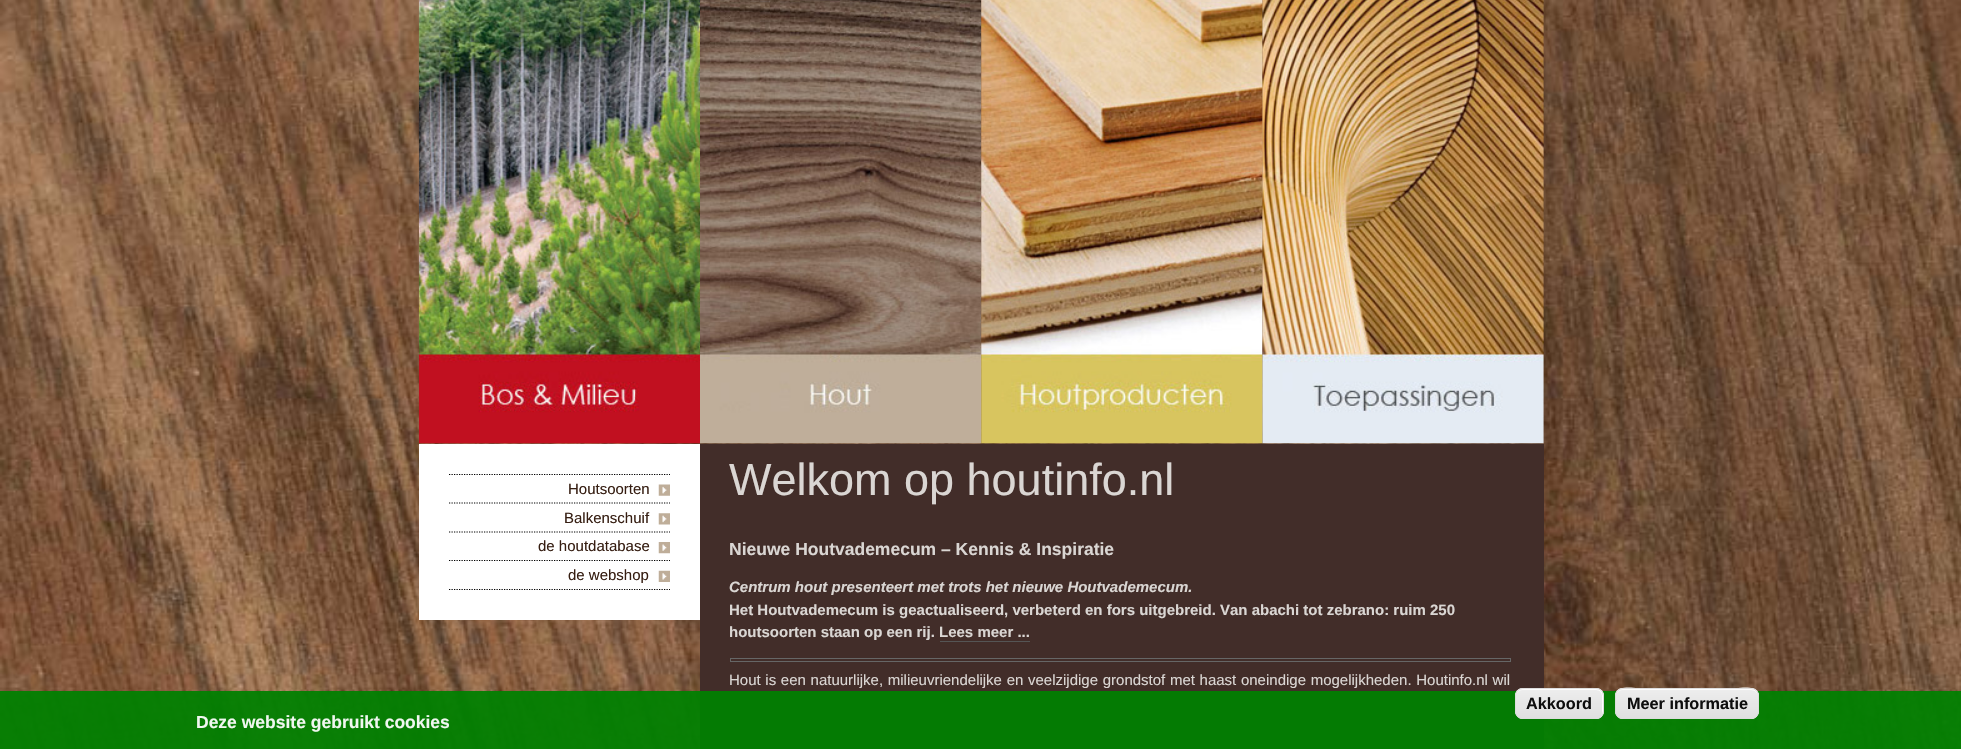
#include "include/core/SkBlurTypes.h"
#include "include/core/SkCanvas.h"
#include "include/core/SkData.h"
#include "include/core/SkFont.h"
#include "include/core/SkFontMgr.h"
#include "include/core/SkImage.h"
#include "include/core/SkMaskFilter.h"
#include "include/core/SkPaint.h"
#include "include/core/SkPathBuilder.h"
#include "include/core/SkTextBlob.h"
#include "include/effects/SkDashPathEffect.h"
#include "include/effects/SkGradientShader.h"
#include "include/utils/SkParsePath.h"

extern sk_sp<SkFontMgr> fontMgr;

void draw(SkCanvas* canvas) {
    SkPaint p;
    p.setAntiAlias(true);
    auto font = [&](const char* family, int weight, float size, bool italic = false) {
        SkFontStyle style(weight, SkFontStyle::kNormal_Width,
            italic ? SkFontStyle::kItalic_Slant : SkFontStyle::kUpright_Slant);
        SkFont result(fontMgr->matchFamilyStyle(family, style), size);
        result.setSubpixel(true);
        return result;
    };
    auto drawTracked = [&](const char* s, float x, float y, const SkFont& font, const SkPaint& ink, float letter, float word) {
        std::vector<SkGlyphID> glyphs(font.countText(s, strlen(s), SkTextEncoding::kUTF8));
        std::vector<float> xs(glyphs.size());
        font.textToGlyphs(s, strlen(s), SkTextEncoding::kUTF8, glyphs);
        font.getXPos(glyphs, xs, x);
        float extra = 0;
        for (size_t i = 0; i < glyphs.size(); i++) {
            xs[i] += extra;
            extra += letter + word * (glyphs[i] == font.unicharToGlyph(' '));
        }
        canvas->drawTextBlob(SkTextBlob::MakeFromPosHGlyphs(glyphs, xs, y, font), 0, 0, ink);
    };
    auto drawPhoto = [&](const char* path, float l, float t, float r, float b) {
        auto image = SkImages::DeferredFromEncodedData(SkData::MakeFromFileName(path));
        canvas->drawImageRect(image, SkRect::MakeLTRB(l, t, r, b), SkSamplingOptions());
    };
    canvas->clear(0xFFFFFFFF);
    drawPhoto("media/1.png", 0, 0, 1961, 749);
    drawPhoto("media/2.png", 418, 0, 700, 444);
    drawPhoto("media/3.png", 700, 0, 982, 444);
    drawPhoto("media/4.png", 981, 0, 1263, 444);
    drawPhoto("media/5.png", 1262, 0, 1544, 444);
    p.setColor(0xFFFFFFFF);
    canvas->drawRect(SkRect::MakeLTRB(419, 444, 700, 620), p);
    drawPhoto("media/6.png", 658, 484, 670, 496);
    p.setStyle(SkPaint::kStroke_Style);
    p.setStrokeWidth(1.2f);
    p.setColor(0xFF000000);
    p.setPathEffect(SkDashPathEffect::Make({{1.25f, 1.25f}}, 0));
    canvas->drawPath(SkPathBuilder().moveTo(449, 474.5f).lineTo(670, 474.5f).detach(), p);
    p.setPathEffect(nullptr);
    p.setPathEffect(SkDashPathEffect::Make({{1.25f, 1.25f}}, 0));
    canvas->drawPath(SkPathBuilder().moveTo(449, 503).lineTo(670, 503).detach(), p);
    p.setPathEffect(nullptr);
    auto font1 = font("Liberation Sans", 400, 15);
    p.setStyle(SkPaint::kFill_Style);
    p.setColor(0xFF361E12);
    canvas->drawString("Houtsoorten", 568, 494, font1, p);
    drawPhoto("media/7.png", 658, 513, 670, 525);
    p.setStyle(SkPaint::kStroke_Style);
    p.setColor(0xFF000000);
    p.setPathEffect(SkDashPathEffect::Make({{1.25f, 1.25f}}, 0));
    canvas->drawPath(SkPathBuilder().moveTo(449, 532).lineTo(670, 532).detach(), p);
    p.setPathEffect(nullptr);
    p.setStyle(SkPaint::kFill_Style);
    p.setColor(0xFF361E12);
    canvas->drawString("Balkenschuif", 564, 523, font1, p);
    drawPhoto("media/8.png", 658, 542, 670, 554);
    p.setStyle(SkPaint::kStroke_Style);
    p.setColor(0xFF000000);
    p.setPathEffect(SkDashPathEffect::Make({{1.25f, 1.25f}}, 0));
    canvas->drawPath(SkPathBuilder().moveTo(449, 560.5f).lineTo(670, 560.5f).detach(), p);
    p.setPathEffect(nullptr);
    p.setStyle(SkPaint::kFill_Style);
    p.setColor(0xFF361E12);
    canvas->drawString("de houtdatabase", 538, 551, font1, p);
    drawPhoto("media/9.png", 658, 570, 670, 582);
    p.setStyle(SkPaint::kStroke_Style);
    p.setColor(0xFF000000);
    p.setPathEffect(SkDashPathEffect::Make({{1.25f, 1.25f}}, 0));
    canvas->drawPath(SkPathBuilder().moveTo(449, 589.5f).lineTo(670, 589.5f).detach(), p);
    p.setPathEffect(nullptr);
    p.setStyle(SkPaint::kFill_Style);
    p.setColor(0xFF361E12);
    canvas->drawString("de webshop", 568, 580, font1, p);
    p.setColor(0xFF422D29);
    canvas->drawRect(SkRect::MakeLTRB(700, 444, 1544, 749), p);
    auto font2 = font("Liberation Sans", 400, 45);
    p.setColor(0xFFDAD6D3);
    canvas->drawString("Welkom op houtinfo.nl", 729, 495, font2, p);
    auto font3 = font("Liberation Sans", 700, 17.5f);
    canvas->drawString("Nieuwe Houtvademecum – Kennis & Inspiratie", 729, 555, font3, p);
    auto font4 = font("Liberation Sans", 700, 15, true);
    canvas->drawString("Centrum hout presenteert met trots het nieuwe Houtvademecum.", 729, 592, font4, p);
    auto font5 = font("Liberation Sans", 700, 15);
    canvas->drawString("Het Houtvademecum is geactualiseerd, verbeterd en fors uitgebreid. Van abachi tot zebrano: ruim 250", 729, 615, font5, p);
    canvas->drawString("houtsoorten staan op een rij. Lees meer ...", 729, 637, font5, p);
    p.setColor(0xFF555555);
    canvas->drawRect(SkRect::MakeLTRB(940, 641, 1030, 642), p);
    p.setStyle(SkPaint::kStroke_Style);
    p.setStrokeWidth(1);
    p.setColor(0xFF666666);
    canvas->drawRect(SkRect::MakeLTRB(730.5f, 658.5f, 1510.5f, 661.5f), p);
    p.setStyle(SkPaint::kFill_Style);
    p.setColor(0xFFDAD6D3);
    drawTracked("Hout is een natuurlijke, milieuvriendelijke en veelzijdige grondstof met haast oneindige mogelijkheden. Houtinfo.nl wil", 729, 685, font1, p, 0, 0.5f);
    p.setColor(0xF0008000);
    canvas->drawRect(SkRect::MakeLTRB(0, 691, 1961, 749), p);
    p.setColor(0xF0EDEDED);
    canvas->drawRoundRect(SkRect::MakeLTRB(1515, 688, 1604, 719), 8, 8, p);
    canvas->save();
    canvas->clipPath(SkPathBuilder().moveTo(1523, 688).lineTo(1596, 688).cubicTo(1600.5f, 688, 1604, 691.5f, 1604, 696).lineTo(1604, 711).cubicTo(1604, 715.5f, 1600.5f, 719, 1596, 719).lineTo(1523, 719).cubicTo(1518.5f, 719, 1515, 715.5f, 1515, 711).lineTo(1515, 696).cubicTo(1515, 691.5f, 1518.5f, 688, 1523, 688).close().detach(), true);
    {
        const SkColor colors[] = {0xF0EDEDED, 0xF0DFDFDF};
        const float stops[] = {0.05f, 1};
        const SkPoint ends[] = {{1559, 660}, {1559, 689}};
        p.setShader(SkGradientShader::MakeLinear(ends, colors, stops, 2, SkTileMode::kClamp));
        p.setAlpha(255);
    }
    canvas->drawRect(SkRect::MakeLTRB(1515, 688, 1604, 689), p);
    {
        const SkColor colors[] = {0xF0EDEDED, 0xF0DFDFDF};
        const float stops[] = {0.05f, 1};
        const SkPoint ends[] = {{1559, 689}, {1559, 718}};
        p.setShader(SkGradientShader::MakeLinear(ends, colors, stops, 2, SkTileMode::kClamp));
        p.setAlpha(255);
    }
    canvas->drawRect(SkRect::MakeLTRB(1515, 689, 1604, 718), p);
    {
        const SkColor colors[] = {0xF0EDEDED, 0xF0DFDFDF};
        const float stops[] = {0.05f, 1};
        const SkPoint ends[] = {{1559, 718}, {1559, 746}};
        p.setShader(SkGradientShader::MakeLinear(ends, colors, stops, 2, SkTileMode::kClamp));
        p.setAlpha(255);
    }
    canvas->drawRect(SkRect::MakeLTRB(1515, 718, 1604, 719), p);
    canvas->restore();
    p.setShader(nullptr);
    p.setColor(0xF0FFFFFF);
    canvas->drawPath(SkPathBuilder().moveTo(1522, 690).lineTo(1596, 690).cubicTo(1600, 690, 1602, 693, 1602, 696).lineTo(1602, 712).cubicTo(1602, 714, 1602, 715, 1601, 717).cubicTo(1604, 714, 1603, 708, 1603, 704).cubicTo(1603, 699, 1605, 689, 1597, 689).lineTo(1534, 689).cubicTo(1528, 689, 1516, 686, 1516, 696).cubicTo(1516, 693, 1519, 690, 1522, 690).close().detach(), p);
    p.setStyle(SkPaint::kStroke_Style);
    p.setColor(0xF0DCDCDC);
    canvas->drawRoundRect(SkRect::MakeLTRB(1515.5f, 688.5f, 1603.5f, 718.5f), 7.5f, 7.5f, p);
    auto font6 = font("Liberation Sans", 700, 16.25f);
    p.setStyle(SkPaint::kFill_Style);
    p.setColor(0xFF0E0E0E);
    canvas->drawString("Akkoord", 1526, 709, font6, p);
    p.setColor(0xF0EDEDED);
    canvas->drawRoundRect(SkRect::MakeLTRB(1615, 688, 1759, 719), 8, 8, p);
    canvas->save();
    canvas->clipPath(SkPathBuilder().moveTo(1623, 688).lineTo(1751, 688).cubicTo(1755.5f, 688, 1759, 691.5f, 1759, 696).lineTo(1759, 711).cubicTo(1759, 715.5f, 1755.5f, 719, 1751, 719).lineTo(1623, 719).cubicTo(1618.5f, 719, 1615, 715.5f, 1615, 711).lineTo(1615, 696).cubicTo(1615, 691.5f, 1618.5f, 688, 1623, 688).close().detach(), true);
    {
        const SkColor colors[] = {0xF0EDEDED, 0xF0DFDFDF};
        const float stops[] = {0.05f, 1};
        const SkPoint ends[] = {{1687, 660}, {1687, 689}};
        p.setShader(SkGradientShader::MakeLinear(ends, colors, stops, 2, SkTileMode::kClamp));
        p.setAlpha(255);
    }
    canvas->drawRect(SkRect::MakeLTRB(1615, 688, 1759, 689), p);
    {
        const SkColor colors[] = {0xF0EDEDED, 0xF0DFDFDF};
        const float stops[] = {0.05f, 1};
        const SkPoint ends[] = {{1687, 689}, {1687, 718}};
        p.setShader(SkGradientShader::MakeLinear(ends, colors, stops, 2, SkTileMode::kClamp));
        p.setAlpha(255);
    }
    canvas->drawRect(SkRect::MakeLTRB(1615, 689, 1759, 718), p);
    {
        const SkColor colors[] = {0xF0EDEDED, 0xF0DFDFDF};
        const float stops[] = {0.05f, 1};
        const SkPoint ends[] = {{1687, 718}, {1687, 746}};
        p.setShader(SkGradientShader::MakeLinear(ends, colors, stops, 2, SkTileMode::kClamp));
        p.setAlpha(255);
    }
    canvas->drawRect(SkRect::MakeLTRB(1615, 718, 1759, 719), p);
    canvas->restore();
    p.setShader(nullptr);
    p.setColor(0xF0FFFFFF);
    canvas->drawPath(SkPathBuilder().moveTo(1622, 690).lineTo(1751, 690).cubicTo(1755, 690, 1758, 693, 1758, 696).cubicTo(1758, 683, 1735, 689, 1730, 689).lineTo(1644, 689).cubicTo(1639, 689, 1616, 683, 1616, 696).cubicTo(1616, 693, 1619, 690, 1622, 690).close().detach(), p);
    p.setStyle(SkPaint::kStroke_Style);
    p.setColor(0xF0DCDCDC);
    canvas->drawRoundRect(SkRect::MakeLTRB(1615.5f, 688.5f, 1758.5f, 718.5f), 7.5f, 7.5f, p);
    p.setStyle(SkPaint::kFill_Style);
    p.setColor(0xFF0E0E0E);
    canvas->drawString("Meer informatie", 1627, 709, font6, p);
    p.setColor(0xFFF0F7F0);
    canvas->drawString("Deze website gebruikt cookies", 196, 728, font3, p);
}
